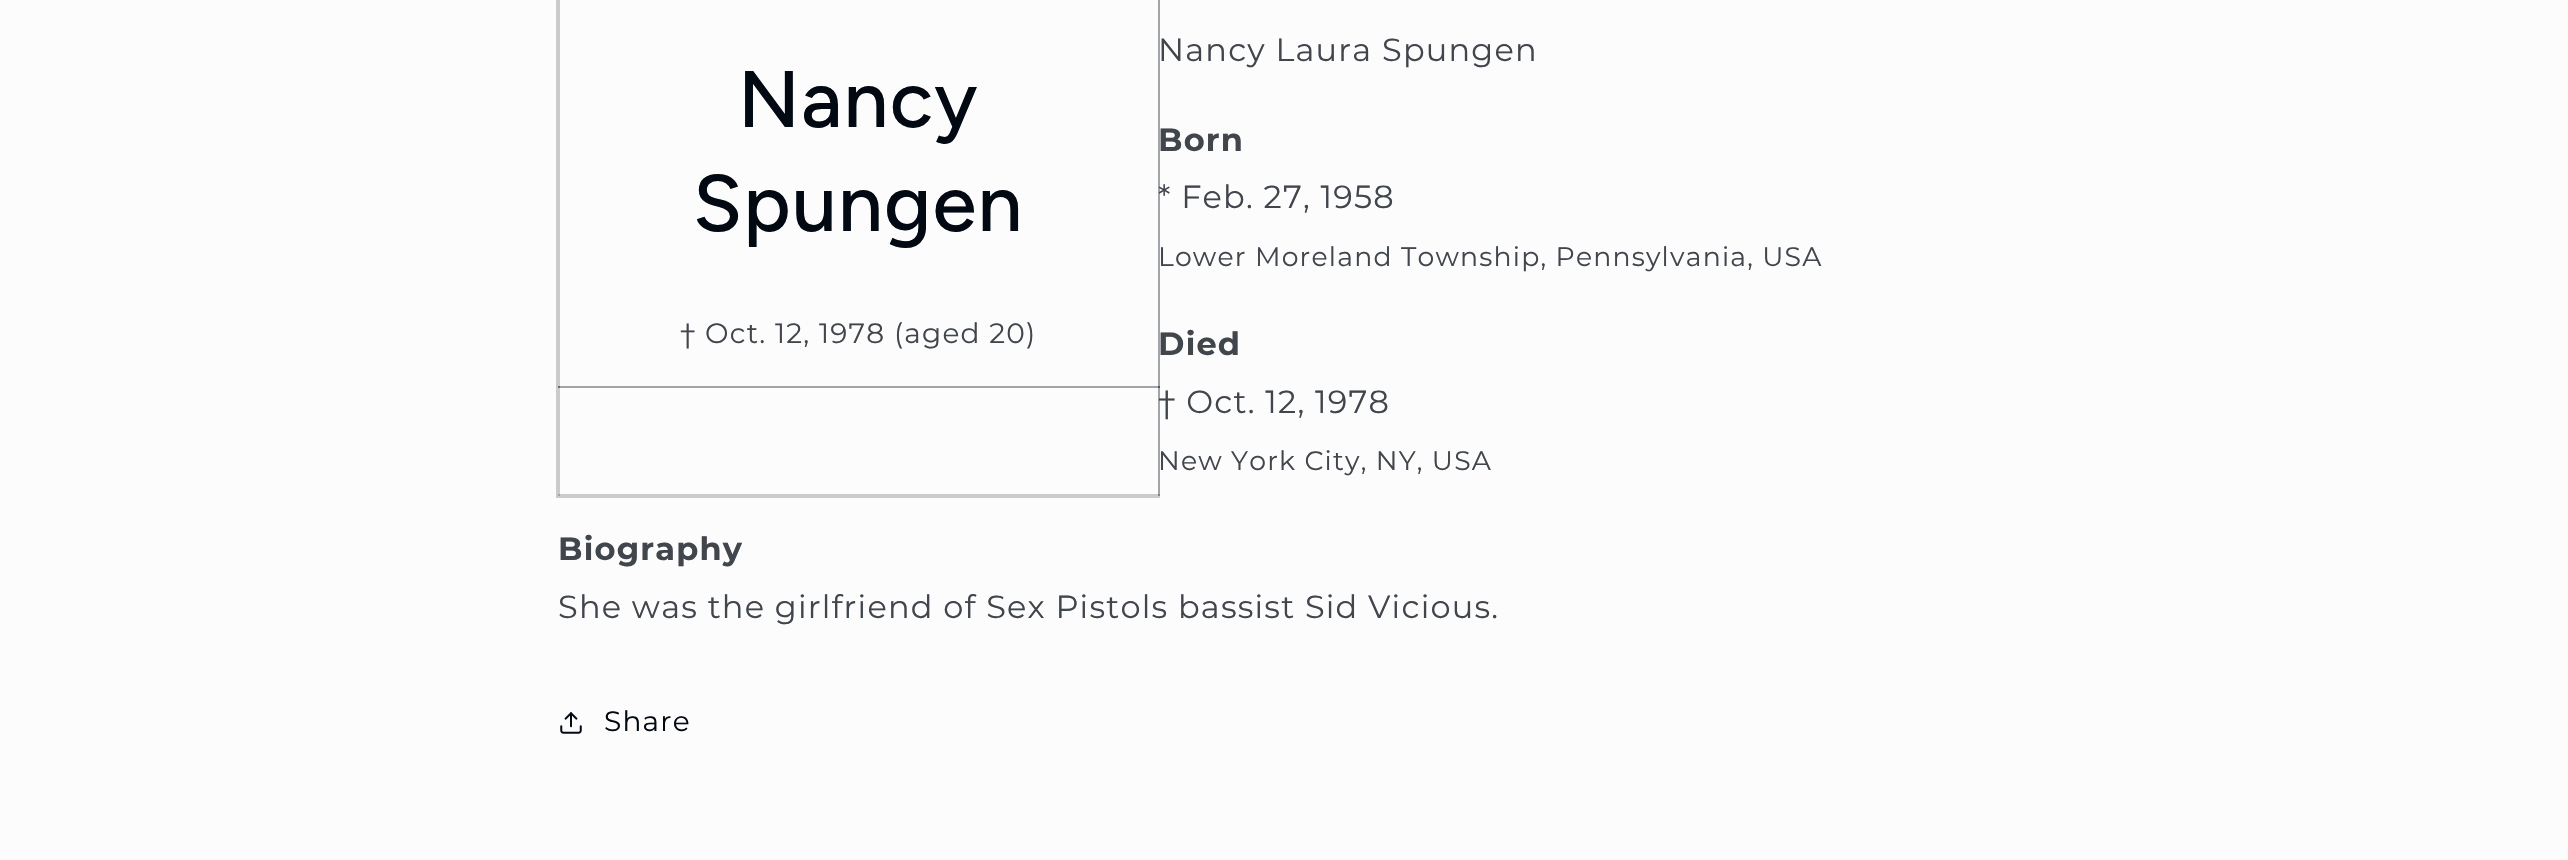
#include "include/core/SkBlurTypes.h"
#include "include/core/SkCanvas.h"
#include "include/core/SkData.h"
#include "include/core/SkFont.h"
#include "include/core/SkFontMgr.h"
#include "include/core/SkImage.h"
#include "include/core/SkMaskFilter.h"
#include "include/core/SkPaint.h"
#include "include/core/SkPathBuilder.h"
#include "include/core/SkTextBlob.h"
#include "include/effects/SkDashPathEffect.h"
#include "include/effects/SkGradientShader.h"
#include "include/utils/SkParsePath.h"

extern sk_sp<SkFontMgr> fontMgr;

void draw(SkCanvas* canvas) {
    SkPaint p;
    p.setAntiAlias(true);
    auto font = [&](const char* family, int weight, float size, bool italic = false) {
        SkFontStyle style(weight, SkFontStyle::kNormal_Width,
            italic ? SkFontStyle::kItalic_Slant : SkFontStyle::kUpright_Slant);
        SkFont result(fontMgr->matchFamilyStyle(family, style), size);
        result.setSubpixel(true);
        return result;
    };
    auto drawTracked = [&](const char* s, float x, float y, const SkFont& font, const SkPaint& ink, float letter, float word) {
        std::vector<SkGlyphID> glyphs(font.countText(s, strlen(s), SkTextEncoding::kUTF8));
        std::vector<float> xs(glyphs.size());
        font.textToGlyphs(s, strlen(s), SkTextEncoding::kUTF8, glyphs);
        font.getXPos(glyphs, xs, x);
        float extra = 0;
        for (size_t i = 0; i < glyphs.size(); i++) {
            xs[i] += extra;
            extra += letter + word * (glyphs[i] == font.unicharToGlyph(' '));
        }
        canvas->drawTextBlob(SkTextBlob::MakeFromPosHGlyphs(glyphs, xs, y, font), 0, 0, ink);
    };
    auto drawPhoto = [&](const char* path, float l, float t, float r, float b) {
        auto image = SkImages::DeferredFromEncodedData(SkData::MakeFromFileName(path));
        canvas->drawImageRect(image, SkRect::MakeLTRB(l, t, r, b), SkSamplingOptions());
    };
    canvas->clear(0xFFFCFCFC);
    auto font1 = font("Montserrat", 400, 32);
    p.setColor(0xFF41464D);
    drawTracked("Nancy Laura Spungen", 1158, 61, font1, p, 1.2f, 0);
    p.setStyle(SkPaint::kStroke_Style);
    p.setStrokeWidth(2);
    p.setColor(0xFFCACBCD);
    canvas->drawRect(SkRect::MakeLTRB(557, -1, 1159, 497), p);
    p.setStyle(SkPaint::kFill_Style);
    {
        const struct { float l, t, r, b; SkColor color; } items[] = {
            {558, 386, 1160, 388, 0x33020912},
            {1158, 386, 1160, 496, 0x33020912},
            {1158, 0, 1160, 388, 0x33020912},
            {558, 494, 1160, 496, 0x33020912},
            {558, 386, 560, 496, 0x33020912},
            {558, 386, 1160, 388, 0x33020912},
            {558, 0, 560, 388, 0x33020912},
        };
        for (auto [l, t, r, b, color] : items) {
            p.setColor(color);
            canvas->drawRect(SkRect::MakeLTRB(l, t, r, b), p);
        }
    }
    auto font2 = font("Figtree", 500, 80);
    p.setColor(0xFF020912);
    drawTracked("Nancy", 738, 127, font2, p, 1.2f, 0);
    drawTracked("Spungen", 693, 231, font2, p, 1.2f, 0);
    auto font3 = font("Montserrat", 400, 28);
    p.setColor(0xFF41464D);
    drawTracked("† Oct. 12, 1978 (aged 20)", 680, 343, font3, p, 1.2f, 0);
    auto font4 = font("Montserrat", 700, 32);
    drawTracked("Born", 1158, 151, font4, p, 1.2f, 0);
    drawTracked("* Feb. 27, 1958", 1158, 208, font1, p, 1.2f, 0);
    auto font5 = font("Montserrat", 400, 26.7f);
    drawTracked("Lower Moreland Township, Pennsylvania, USA", 1158, 266, font5, p, 1.2f, 0);
    drawTracked("Died", 1158, 355, font4, p, 1.2f, 0);
    drawTracked("† Oct. 12, 1978", 1158, 413, font1, p, 1.2f, 0);
    drawTracked("New York City, NY, USA", 1158, 470, font5, p, 1.2f, 0);
    drawTracked("Biography", 558, 560, font4, p, 1.2f, 0);
    drawTracked("She was the girlfriend of Sex Pistols bassist Sid Vicious.", 558, 618, font1, p, 1.2f, 0);
    drawPhoto("media/1.png", 560, 712, 582, 734);
    p.setColor(0xFF020912);
    drawTracked("Share", 604, 731, font3, p, 1.2f, 0);
}
